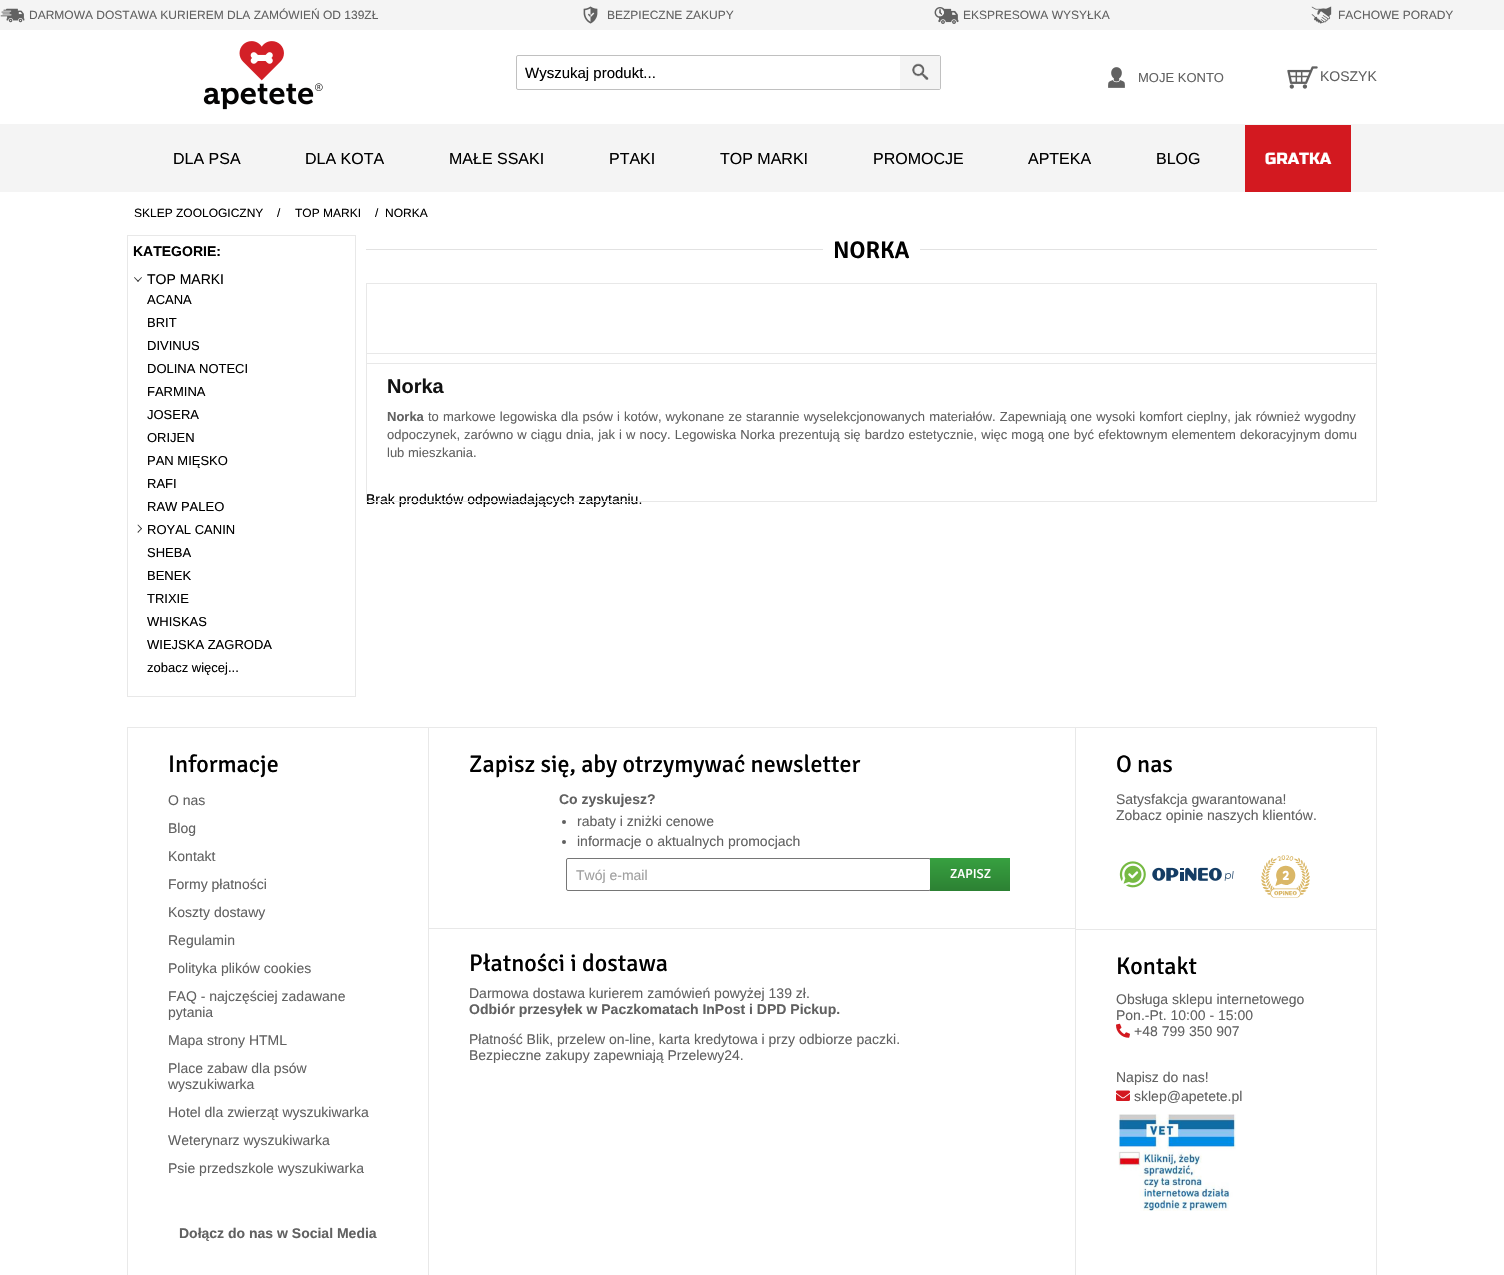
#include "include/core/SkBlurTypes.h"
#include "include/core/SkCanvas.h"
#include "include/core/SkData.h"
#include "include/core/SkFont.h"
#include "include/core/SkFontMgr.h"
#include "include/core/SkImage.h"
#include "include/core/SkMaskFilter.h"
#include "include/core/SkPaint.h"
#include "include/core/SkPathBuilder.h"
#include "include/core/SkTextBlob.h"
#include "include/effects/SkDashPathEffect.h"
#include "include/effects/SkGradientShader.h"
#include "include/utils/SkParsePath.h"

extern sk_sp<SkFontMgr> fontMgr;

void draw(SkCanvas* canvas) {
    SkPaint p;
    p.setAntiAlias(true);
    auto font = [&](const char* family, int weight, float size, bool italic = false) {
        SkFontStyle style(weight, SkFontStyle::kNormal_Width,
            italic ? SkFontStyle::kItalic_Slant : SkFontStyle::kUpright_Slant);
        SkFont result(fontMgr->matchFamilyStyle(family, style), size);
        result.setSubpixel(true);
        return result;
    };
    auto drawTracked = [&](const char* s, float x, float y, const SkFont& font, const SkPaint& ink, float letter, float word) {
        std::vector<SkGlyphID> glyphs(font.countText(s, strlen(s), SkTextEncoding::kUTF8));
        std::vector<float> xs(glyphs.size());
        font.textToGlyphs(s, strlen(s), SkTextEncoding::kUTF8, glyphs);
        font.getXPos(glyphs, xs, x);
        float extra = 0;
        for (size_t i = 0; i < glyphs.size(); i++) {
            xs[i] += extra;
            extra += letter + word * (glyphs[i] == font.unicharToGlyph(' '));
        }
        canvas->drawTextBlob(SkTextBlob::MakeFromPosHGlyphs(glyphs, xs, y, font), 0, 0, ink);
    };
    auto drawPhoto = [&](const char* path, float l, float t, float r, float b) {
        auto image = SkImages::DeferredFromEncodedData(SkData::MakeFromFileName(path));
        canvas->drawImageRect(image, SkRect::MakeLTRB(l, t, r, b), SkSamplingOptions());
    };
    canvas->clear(0xFFFFFFFF);
    p.setColor(0xFFF4F4F4);
    canvas->drawRect(SkRect::MakeLTRB(0, 0, 1504, 30), p);
    drawPhoto("media/1.png", 0, 8, 25, 23);
    auto font1 = font("Liberation Sans", 400, 12);
    p.setColor(0xFF616161);
    canvas->drawString("DARMOWA DOSTAWA KURIEREM DLA ZAMÓWIEŃ OD 139ZŁ", 29, 19, font1, p);
    drawPhoto("media/2.png", 583, 6, 598, 24);
    canvas->drawString("BEZPIECZNE ZAKUPY", 607, 19, font1, p);
    drawPhoto("media/3.png", 934, 7, 959, 24);
    canvas->drawString("EKSPRESOWA WYSYŁKA", 963, 19, font1, p);
    drawPhoto("media/4.png", 1311, 6, 1332, 24);
    canvas->drawString("FACHOWE PORADY", 1338, 19, font1, p);
    drawPhoto("media/5.png", 203, 41, 323, 110);
    p.setStyle(SkPaint::kStroke_Style);
    p.setStrokeWidth(1);
    p.setColor(0xFFC0C0C0);
    canvas->drawRoundRect(SkRect::MakeLTRB(516.5f, 55.5f, 940.5f, 89.5f), 1.5f, 1.5f, p);
    canvas->save();
    canvas->clipRect(SkRect::MakeLTRB(525, 64, 905, 81));
    auto font2 = font("Liberation Sans", 400, 15);
    p.setStyle(SkPaint::kFill_Style);
    p.setColor(0xFF000000);
    canvas->drawString("Wyszukaj produkt...", 525, 78, font2, p);
    canvas->restore();
    p.setColor(0xFFF4F4F4);
    canvas->drawRect(SkRect::MakeLTRB(900, 56, 940, 89), p);
    drawPhoto("media/6.png", 912, 63, 929, 80);
    drawPhoto("media/7.png", 1108, 67, 1125, 88);
    auto font3 = font("Liberation Sans", 400, 13);
    p.setColor(0xFF616161);
    canvas->drawString("MOJE KONTO", 1138, 82, font3, p);
    drawPhoto("media/8.png", 1287, 66, 1318, 89);
    auto font4 = font("Liberation Sans", 400, 14);
    canvas->drawString("KOSZYK", 1320, 81, font4, p);
    p.setColor(0xFFF4F4F4);
    canvas->drawRect(SkRect::MakeLTRB(0, 124, 1244, 192), p);
    auto font5 = font("Liberation Sans", 400, 16);
    p.setColor(0xFF000000);
    {
        const struct { const char* s; float x, y; } items[] = {
            {"DLA PSA", 173, 164},
            {"DLA KOTA", 305, 164},
            {"MAŁE SSAKI", 449, 164},
            {"PTAKI", 609, 164},
            {"TOP MARKI", 720, 164},
            {"PROMOCJE", 873, 164},
            {"APTEKA", 1028, 164},
            {"BLOG", 1156, 164},
        };
        for (auto [s, x, y] : items) {
            canvas->drawString(s, x, y, font5, p);
        }
    }
    {
        const struct { float l, t, r, b; SkColor color; } items[] = {
            {1245, 125, 1351, 192, 0xFFD31920},
            {1244, 124, 1352, 125, 0xFFF4F4F4},
            {1351, 124, 1352, 192, 0xFFF4F4F4},
            {1244, 124, 1245, 192, 0xFFF4F4F4},
        };
        for (auto [l, t, r, b, color] : items) {
            p.setColor(color);
            canvas->drawRect(SkRect::MakeLTRB(l, t, r, b), p);
        }
    }
    auto font6 = font("Russo One", 400, 16);
    p.setColor(0xFFFFFFFF);
    canvas->drawString("GRATKA", 1265, 164, font6, p);
    p.setColor(0xFFF4F4F4);
    canvas->drawRect(SkRect::MakeLTRB(1352, 124, 1504, 192), p);
    p.setColor(0xFF000000);
    {
        const struct { const char* s; float x, y; } items[] = {
            {"SKLEP ZOOLOGICZNY", 134, 217},
            {"/", 277, 217},
            {"TOP MARKI", 295, 217},
            {"/", 375, 217},
            {"NORKA", 385, 217},
        };
        for (auto [s, x, y] : items) {
            canvas->drawString(s, x, y, font1, p);
        }
    }
    p.setStyle(SkPaint::kStroke_Style);
    p.setColor(0xFFE8E8E8);
    canvas->drawRect(SkRect::MakeLTRB(127.5f, 235.5f, 355.5f, 696.5f), p);
    auto font7 = font("Liberation Sans", 700, 14);
    p.setStyle(SkPaint::kFill_Style);
    p.setColor(0xFF000000);
    canvas->drawString("KATEGORIE:", 133, 256, font7, p);
    p.setColor(0xFF2F2F2F);
    canvas->drawPath(SkPathBuilder().moveTo(141.5f, 277).lineTo(142, 277.5f).lineTo(138, 282).lineTo(137.5f, 281).close().detach(), p);
    canvas->drawPath(SkPathBuilder().moveTo(134.5f, 277).lineTo(138.5f, 281).lineTo(138, 282).lineTo(134, 277.5f).close().detach(), p);
    p.setColor(0xFF000000);
    canvas->drawString("TOP MARKI", 147, 284, font4, p);
    {
        const struct { const char* s; float x, y; } items[] = {
            {"ACANA", 147, 304},
            {"BRIT", 147, 327},
            {"DIVINUS", 147, 350},
            {"DOLINA NOTECI", 147, 373},
            {"FARMINA", 147, 396},
            {"JOSERA", 147, 419},
            {"ORIJEN", 147, 442},
            {"PAN MIĘSKO", 147, 465},
            {"RAFI", 147, 488},
            {"RAW PALEO", 147, 511},
        };
        for (auto [s, x, y] : items) {
            canvas->drawString(s, x, y, font3, p);
        }
    }
    p.setColor(0xFF2F2F2F);
    canvas->drawPath(SkPathBuilder().moveTo(137.5f, 525).lineTo(138, 524.5f).lineTo(142, 528.5f).lineTo(141.5f, 529.5f).close().detach(), p);
    canvas->drawPath(SkPathBuilder().moveTo(137.5f, 532).lineTo(141.5f, 528).lineTo(142, 528.5f).lineTo(138, 533).close().detach(), p);
    p.setColor(0xFF000000);
    {
        const struct { const char* s; float x, y; } items[] = {
            {"ROYAL CANIN", 147, 534},
            {"SHEBA", 147, 557},
            {"BENEK", 147, 580},
            {"TRIXIE", 147, 603},
            {"WHISKAS", 147, 626},
            {"WIEJSKA ZAGRODA", 147, 649},
            {"zobacz więcej...", 147, 672},
        };
        for (auto [s, x, y] : items) {
            canvas->drawString(s, x, y, font3, p);
        }
    }
    p.setColor(0xFFE2E2E2);
    canvas->drawRect(SkRect::MakeLTRB(366, 249, 1377, 250), p);
    p.setColor(0xFFFFFFFF);
    canvas->drawRect(SkRect::MakeLTRB(823, 249, 920, 250), p);
    auto font8 = font("Signika", 600, 24);
    p.setColor(0xFF000000);
    canvas->drawString("NORKA", 833, 258, font8, p);
    p.setStyle(SkPaint::kStroke_Style);
    p.setColor(0xFFE8E8E8);
    canvas->drawRect(SkRect::MakeLTRB(366.5f, 283.5f, 1376.5f, 363.5f), p);
    p.setStyle(SkPaint::kFill_Style);
    p.setColor(0xFF000000);
    canvas->drawString("Brak produktów odpowiadających zapytaniu.", 366, 504, font4, p);
    p.setStyle(SkPaint::kStroke_Style);
    p.setColor(0xFFE8E8E8);
    canvas->drawRect(SkRect::MakeLTRB(366.5f, 353.5f, 1376.5f, 501.5f), p);
    auto font9 = font("Liberation Sans", 700, 20);
    p.setStyle(SkPaint::kFill_Style);
    p.setColor(0xFF121212);
    canvas->drawString("Norka", 387, 393, font9, p);
    auto font10 = font("Liberation Sans", 700, 13);
    p.setColor(0xFF616161);
    canvas->drawString("Norka", 387, 421, font10, p);
    drawTracked("to markowe legowiska dla psów i kotów, wykonane ze starannie wyselekcjonowanych materiałów. Zapewniają one wysoki komfort cieplny, jak również wygodny", 428, 421, font3, p, 0, 0.5f);
    drawTracked("odpoczynek, zarówno w ciągu dnia, jak i w nocy. Legowiska Norka prezentują się bardzo estetycznie, więc mogą one być efektownym elementem dekoracyjnym domu", 387, 439, font3, p, 0, 0.5f);
    canvas->drawString("lub mieszkania.", 387, 457, font3, p);
    p.setStyle(SkPaint::kStroke_Style);
    p.setColor(0xFFE9E9E9);
    canvas->drawRect(SkRect::MakeLTRB(127.5f, 727.5f, 1376.5f, 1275.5f), p);
    auto font11 = font("Signika", 400, 24);
    p.setStyle(SkPaint::kFill_Style);
    p.setColor(0xFF000000);
    canvas->drawString("Informacje", 168, 772, font11, p);
    p.setColor(0xFF616161);
    {
        const struct { const char* s; float x, y; } items[] = {
            {"O nas", 168, 805},
            {"Blog", 168, 833},
            {"Kontakt", 168, 861},
            {"Formy płatności", 168, 889},
            {"Koszty dostawy", 168, 917},
            {"Regulamin", 168, 945},
            {"Polityka plików cookies", 168, 973},
            {"FAQ - najczęściej zadawane", 168, 1001},
            {"pytania", 168, 1017},
            {"Mapa strony HTML", 168, 1045},
            {"Place zabaw dla psów", 168, 1073},
            {"wyszukiwarka", 168, 1089},
            {"Hotel dla zwierząt wyszukiwarka", 168, 1117},
            {"Weterynarz wyszukiwarka", 168, 1145},
            {"Psie przedszkole wyszukiwarka", 168, 1173},
        };
        for (auto [s, x, y] : items) {
            canvas->drawString(s, x, y, font4, p);
        }
    }
    canvas->drawString("Dołącz do nas w Social Media", 179, 1238, font7, p);
    p.setColor(0xFFE8E8E8);
    canvas->drawRect(SkRect::MakeLTRB(1075, 728, 1076, 1275), p);
    canvas->drawRect(SkRect::MakeLTRB(428, 728, 429, 1275), p);
    p.setColor(0xFF000000);
    canvas->drawString("Zapisz się, aby otrzymywać newsletter", 469, 772, font11, p);
    p.setColor(0xFFE8E8E8);
    canvas->drawRect(SkRect::MakeLTRB(429, 928, 1075, 929), p);
    p.setColor(0xFF616161);
    canvas->drawString("Co zyskujesz?", 559, 804, font7, p);
    p.setColor(0xFF606060);
    canvas->drawCircle(564, 822, 2, p);
    p.setColor(0xFF616161);
    canvas->drawString("rabaty i zniżki cenowe", 577, 826, font4, p);
    p.setColor(0xFF606060);
    canvas->drawCircle(564, 842, 2, p);
    p.setColor(0xFF616161);
    canvas->drawString("informacje o aktualnych promocjach", 577, 846, font4, p);
    p.setStyle(SkPaint::kStroke_Style);
    p.setColor(0xFF767676);
    canvas->drawRoundRect(SkRect::MakeLTRB(566.5f, 858.5f, 930.5f, 890.5f), 1.5f, 1.5f, p);
    p.setStyle(SkPaint::kFill_Style);
    p.setColor(0xFFA0A0A0);
    canvas->drawString("Twój e-mail", 576, 880, font4, p);
    {
        const SkColor colors[] = {0xFF37A040, 0xFF2C8133};
        const float stops[] = {0.01f, 1};
        const SkPoint ends[] = {{970, 858}, {970, 891}};
        p.setShader(SkGradientShader::MakeLinear(ends, colors, stops, 2, SkTileMode::kClamp));
        p.setAlpha(255);
    }
    canvas->drawRect(SkRect::MakeLTRB(930, 858, 1010, 891), p);
    auto font12 = font("Signika", 400, 13);
    p.setShader(nullptr);
    p.setColor(0xFFFFFFFF);
    canvas->drawString("ZAPISZ", 950, 878, font12, p);
    p.setColor(0xFF000000);
    canvas->drawString("Płatności i dostawa", 469, 971, font11, p);
    p.setColor(0xFF616161);
    canvas->drawString("Darmowa dostawa kurierem zamówień powyżej 139 zł.", 469, 998, font4, p);
    canvas->drawString("Odbiór przesyłek w Paczkomatach InPost i DPD Pickup.", 469, 1014, font7, p);
    canvas->drawString("Płatność Blik, przelew on-line, karta kredytowa i przy odbiorze paczki.", 469, 1044, font4, p);
    canvas->drawString("Bezpieczne zakupy zapewniają Przelewy24.", 469, 1060, font4, p);
    p.setColor(0xFF000000);
    canvas->drawString("O nas", 1116, 772, font11, p);
    p.setColor(0xFF616161);
    canvas->drawString("Satysfakcja gwarantowana!", 1116, 804, font4, p);
    canvas->drawString("Zobacz opinie naszych klientów.", 1116, 820, font4, p);
    drawPhoto("media/9.png", 1119, 861, 1234, 888);
    drawPhoto("media/10.png", 1261, 855, 1310, 898);
    p.setColor(0xFFE8E8E8);
    canvas->drawRect(SkRect::MakeLTRB(1076, 929, 1376, 930), p);
    p.setColor(0xFF000000);
    canvas->drawString("Kontakt", 1116, 974, font11, p);
    p.setColor(0xFF616161);
    canvas->drawString("Obsługa sklepu internetowego", 1116, 1004, font4, p);
    canvas->drawString("Pon.-Pt. 10:00 - 15:00", 1116, 1020, font4, p);
    drawPhoto("media/11.png", 1116, 1023, 1130, 1038);
    canvas->drawString("+48 799 350 907", 1134, 1036, font4, p);
    canvas->drawString("Napisz do nas!", 1116, 1082, font4, p);
    drawPhoto("media/12.png", 1116, 1090, 1130, 1101);
    canvas->drawString("sklep@apetete.pl", 1134, 1101, font4, p);
    drawPhoto("media/13.png", 1118, 1114, 1236, 1211);
}
